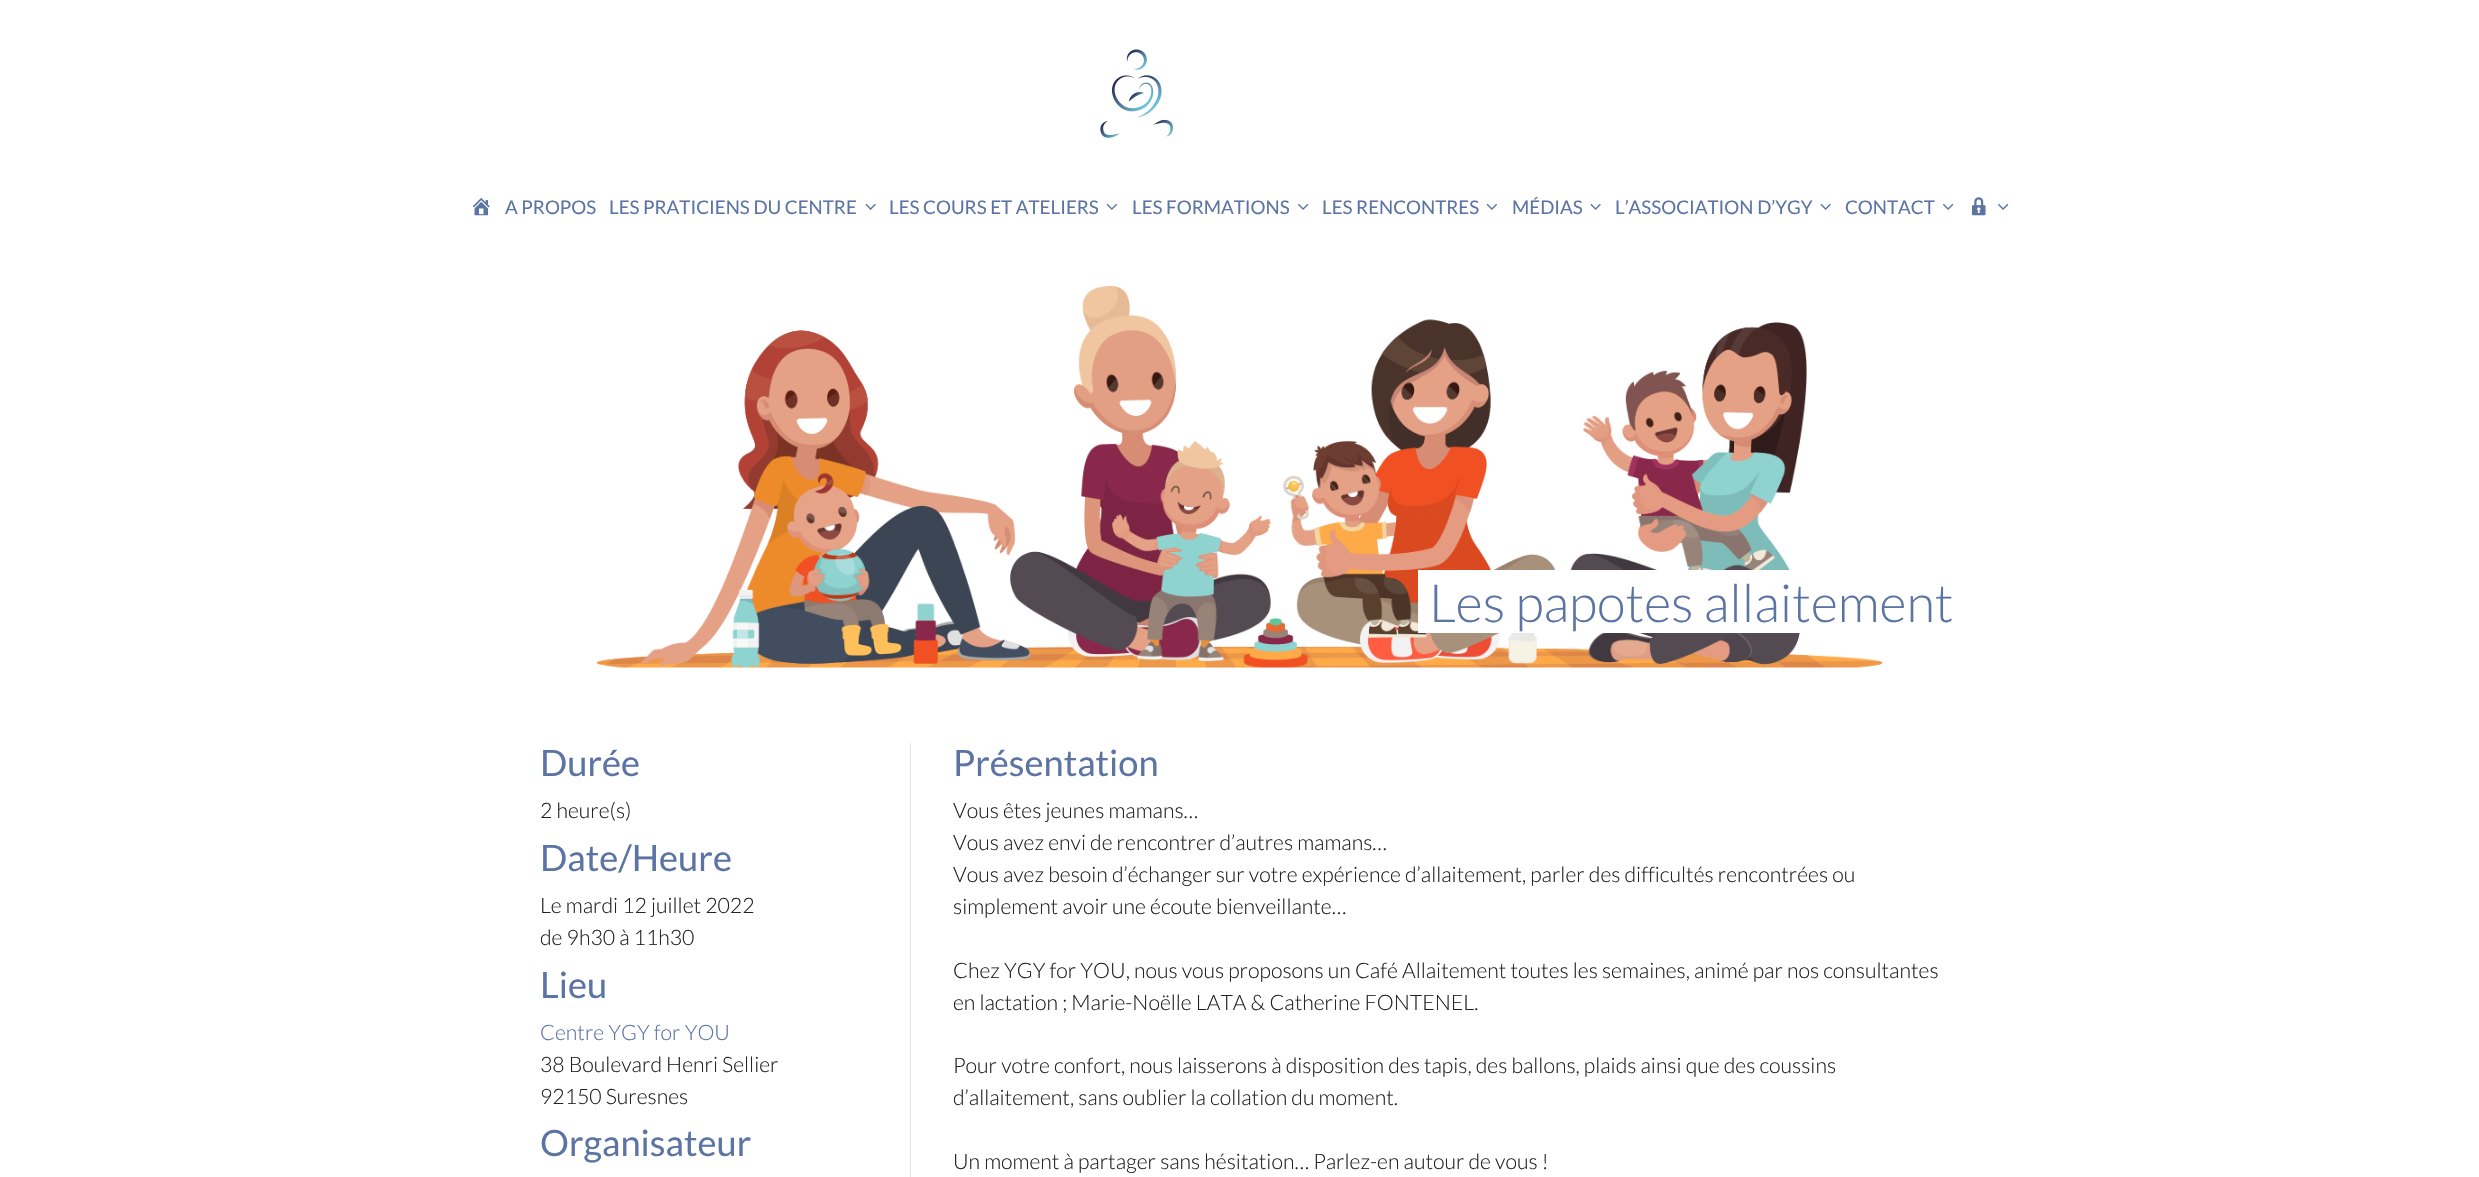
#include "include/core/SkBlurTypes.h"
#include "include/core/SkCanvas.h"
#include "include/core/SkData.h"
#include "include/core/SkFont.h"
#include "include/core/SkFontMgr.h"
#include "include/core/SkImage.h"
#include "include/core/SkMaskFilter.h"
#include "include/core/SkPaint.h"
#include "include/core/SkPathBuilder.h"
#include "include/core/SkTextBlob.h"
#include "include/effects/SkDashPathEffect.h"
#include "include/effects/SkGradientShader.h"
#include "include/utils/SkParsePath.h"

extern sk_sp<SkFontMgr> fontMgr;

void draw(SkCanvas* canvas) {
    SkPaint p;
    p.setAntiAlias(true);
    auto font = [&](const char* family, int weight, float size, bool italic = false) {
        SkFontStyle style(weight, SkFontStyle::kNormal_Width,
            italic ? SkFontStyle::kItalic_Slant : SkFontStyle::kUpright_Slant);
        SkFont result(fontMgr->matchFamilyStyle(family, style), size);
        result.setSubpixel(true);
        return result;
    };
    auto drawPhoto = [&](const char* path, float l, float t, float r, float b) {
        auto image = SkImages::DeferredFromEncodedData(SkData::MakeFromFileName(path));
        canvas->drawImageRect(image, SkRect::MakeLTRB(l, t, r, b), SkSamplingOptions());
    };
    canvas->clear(0xFFFFFFFF);
    drawPhoto("media/1.png", 1100, 49, 1174, 138);
    drawPhoto("media/2.png", 472, 197, 490, 216);
    auto font1 = font("Lato", 400, 18.75f);
    p.setColor(0xFF5B74A4);
    canvas->drawString("A PROPOS", 505, 214, font1, p);
    canvas->drawString("LES PRATICIENS DU CENTRE", 609, 214, font1, p);
    drawPhoto("media/3.png", 865, 203, 876, 210);
    canvas->drawString("LES COURS ET ATELIERS", 889, 214, font1, p);
    drawPhoto("media/4.png", 1106, 203, 1117, 210);
    canvas->drawString("LES FORMATIONS", 1132, 214, font1, p);
    drawPhoto("media/5.png", 1298, 203, 1309, 210);
    canvas->drawString("LES RENCONTRES", 1322, 214, font1, p);
    drawPhoto("media/4.png", 1486, 203, 1497, 210);
    canvas->drawString("MÉDIAS", 1512, 214, font1, p);
    drawPhoto("media/3.png", 1590, 203, 1601, 210);
    canvas->drawString("L’ASSOCIATION D’YGY", 1615, 214, font1, p);
    drawPhoto("media/3.png", 1820, 203, 1831, 210);
    canvas->drawString("CONTACT", 1845, 214, font1, p);
    drawPhoto("media/5.png", 1943, 203, 1954, 210);
    drawPhoto("media/6.png", 1972, 197, 1986, 216);
    drawPhoto("media/5.png", 1998, 203, 2009, 210);
    drawPhoto("media/7.png", 596, 286, 1883, 668);
    p.setColor(0xFFFFFFFF);
    canvas->drawRect(SkRect::MakeLTRB(1418, 570, 1804, 633), p);
    auto font2 = font("Lato", 300, 52.5f);
    p.setColor(0xFF5B74A4);
    canvas->drawString("Les papotes allaitement", 1429, 622, font2, p);
    p.setColor(0xFFE2E2E2);
    canvas->drawRect(SkRect::MakeLTRB(910, 743, 911, 1177), p);
    auto font3 = font("Lato", 400, 36.25f);
    p.setColor(0xFF5B74A4);
    canvas->drawString("Durée", 540, 776, font3, p);
    auto font4 = font("Lato", 300, 21.25f);
    p.setColor(0xFF222222);
    canvas->drawString("2 heure(s)", 540, 818, font4, p);
    p.setColor(0xFF5B74A4);
    canvas->drawString("Date/Heure", 540, 871, font3, p);
    p.setColor(0xFF222222);
    canvas->drawString("Le mardi 12 juillet 2022", 540, 913, font4, p);
    canvas->drawString("de 9h30 à 11h30", 540, 945, font4, p);
    p.setColor(0xFF5B74A4);
    canvas->drawString("Lieu", 540, 998, font3, p);
    canvas->drawString("Centre YGY for YOU", 540, 1040, font4, p);
    p.setColor(0xFF222222);
    canvas->drawString("38 Boulevard Henri Sellier", 540, 1072, font4, p);
    canvas->drawString("92150 Suresnes", 540, 1104, font4, p);
    p.setColor(0xFF5B74A4);
    canvas->drawString("Organisateur", 540, 1156, font3, p);
    canvas->drawString("Présentation", 953, 776, font3, p);
    p.setColor(0xFF222222);
    {
        const struct { const char* s; float x, y; } items[] = {
            {"Vous êtes jeunes mamans…", 953, 818},
            {"Vous avez envi de rencontrer d’autres mamans…", 953, 850},
            {"Vous avez besoin d’échanger sur votre expérience d’allaitement, parler des difficultés rencontrées ou", 953, 882},
            {"simplement avoir une écoute bienveillante…", 953, 914},
            {"Chez YGY for YOU, nous vous proposons un Café Allaitement toutes les semaines, animé par nos consultantes", 953, 978},
            {"en lactation ; Marie-Noëlle LATA & Catherine FONTENEL.", 953, 1010},
            {"Pour votre confort, nous laisserons à disposition des tapis, des ballons, plaids ainsi que des coussins", 953, 1073},
            {"d’allaitement, sans oublier la collation du moment.", 953, 1105},
            {"Un moment à partager sans hésitation… Parlez-en autour de vous !", 953, 1169},
        };
        for (auto [s, x, y] : items) {
            canvas->drawString(s, x, y, font4, p);
        }
    }
}
